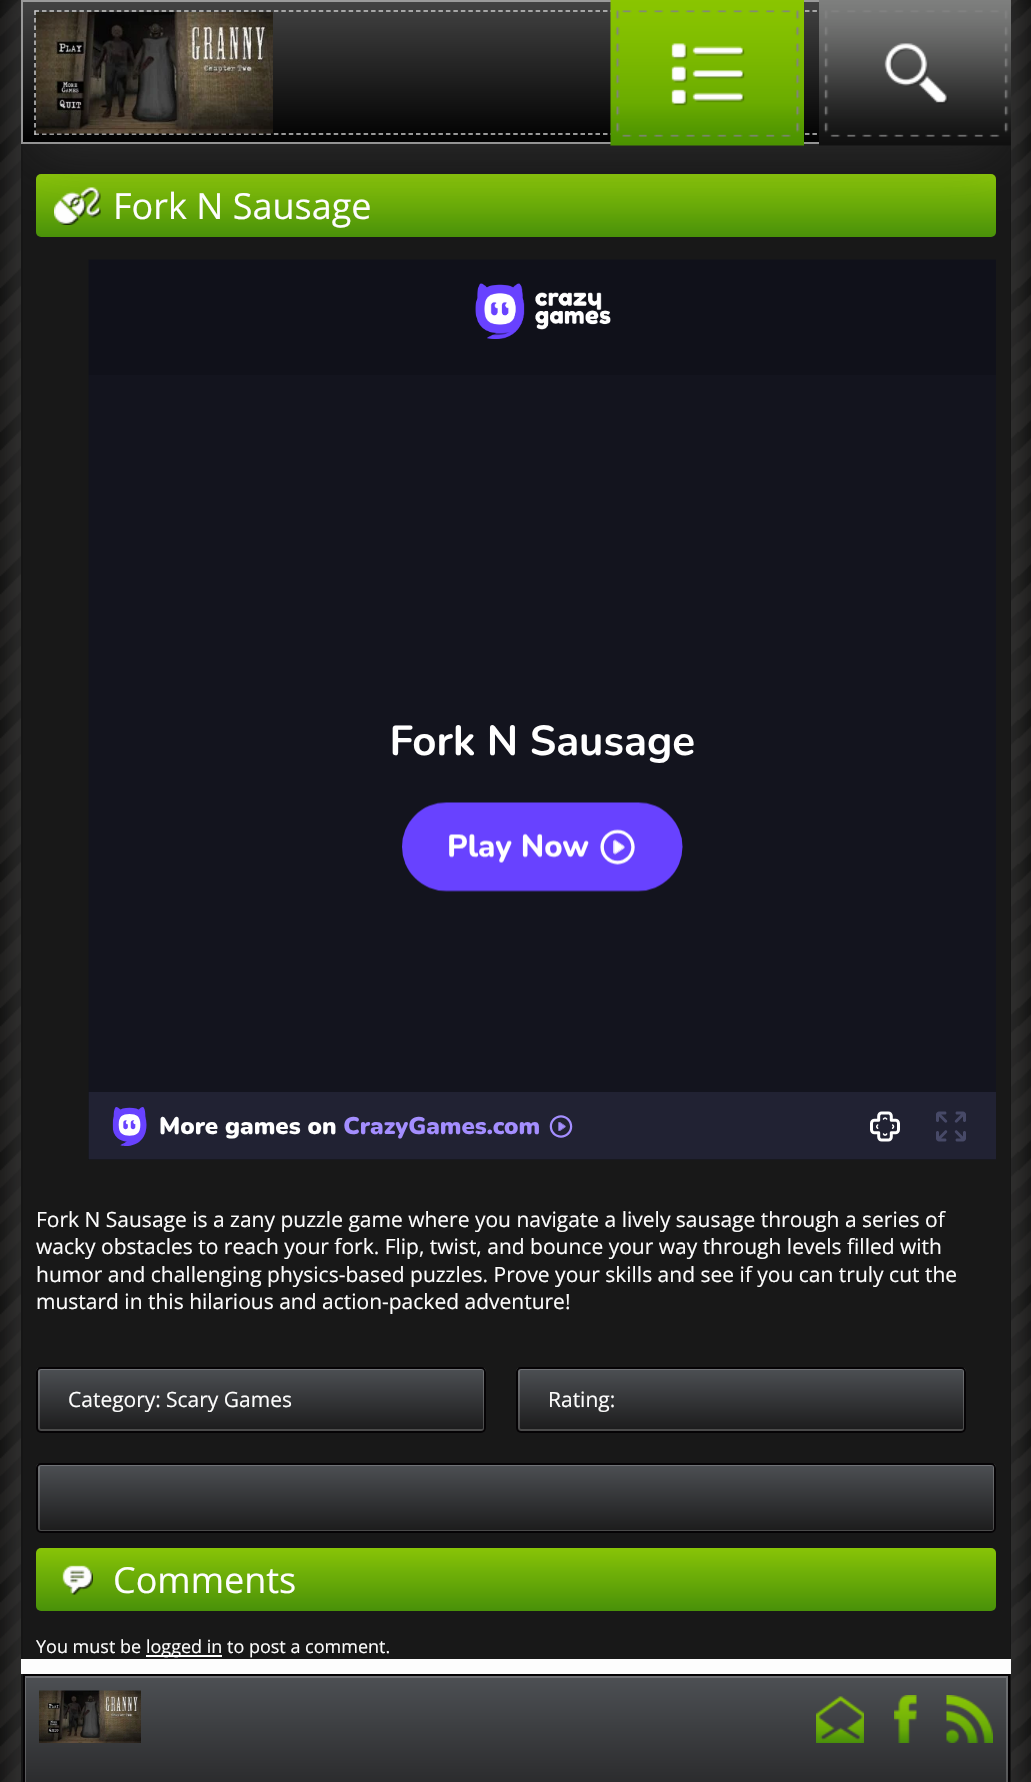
#include "include/core/SkBlurTypes.h"
#include "include/core/SkCanvas.h"
#include "include/core/SkData.h"
#include "include/core/SkFont.h"
#include "include/core/SkFontMgr.h"
#include "include/core/SkImage.h"
#include "include/core/SkMaskFilter.h"
#include "include/core/SkPaint.h"
#include "include/core/SkPathBuilder.h"
#include "include/core/SkTextBlob.h"
#include "include/effects/SkDashPathEffect.h"
#include "include/effects/SkGradientShader.h"
#include "include/utils/SkParsePath.h"

extern sk_sp<SkFontMgr> fontMgr;

void draw(SkCanvas* canvas) {
    SkPaint p;
    p.setAntiAlias(true);
    auto font = [&](const char* family, int weight, float size, bool italic = false) {
        SkFontStyle style(weight, SkFontStyle::kNormal_Width,
            italic ? SkFontStyle::kItalic_Slant : SkFontStyle::kUpright_Slant);
        SkFont result(fontMgr->matchFamilyStyle(family, style), size);
        result.setSubpixel(true);
        return result;
    };
    auto drawPhoto = [&](const char* path, float l, float t, float r, float b) {
        auto image = SkImages::DeferredFromEncodedData(SkData::MakeFromFileName(path));
        canvas->drawImageRect(image, SkRect::MakeLTRB(l, t, r, b), SkSamplingOptions());
    };
    canvas->clear(0xFFFFFFFF);
    drawPhoto("media/1.png", 0, 0, 1031, 1782);
    p.setColor(0x8C4B4B4B);
    p.setMaskFilter(SkMaskFilter::MakeBlur(kNormal_SkBlurStyle, 14));
    canvas->drawRect(SkRect::MakeLTRB(6, -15, 1026, 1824), p);
    p.setMaskFilter(nullptr);
    {
        const struct { float l, t, r, b; SkColor color; } items[] = {
            {21, 1659, 1011, 1674, 0xFFFDFDFD},
            {23, 144, 1010, 1659, 0xFF181818},
            {1010, 144, 1011, 1659, 0xFF151515},
            {21, 144, 23, 1659, 0xFF151515},
        };
        for (auto [l, t, r, b, color] : items) {
            p.setColor(color);
            canvas->drawRect(SkRect::MakeLTRB(l, t, r, b), p);
        }
    }
    {
        const SkColor colors[] = {0xFF499109, 0xFF88C407};
        const float stops[] = {0, 1};
        const SkPoint ends[] = {{516, 237}, {516, 174}};
        p.setShader(SkGradientShader::MakeLinear(ends, colors, stops, 2, SkTileMode::kClamp));
        p.setAlpha(255);
    }
    canvas->drawRoundRect(SkRect::MakeLTRB(36, 174, 996, 237), 5, 5, p);
    drawPhoto("media/5.png", 54, 187, 101, 225);
    canvas->save();
    canvas->clipRect(SkRect::MakeLTRB(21, 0, 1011, 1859));
    p.setShader(nullptr);
    p.setColor(0x594B4B4B);
    p.setMaskFilter(SkMaskFilter::MakeBlur(kNormal_SkBlurStyle, 26));
    canvas->drawRect(SkRect::MakeLTRB(36, 38, 996, 152), p);
    p.setMaskFilter(nullptr);
    canvas->restore();
    {
        const SkColor colors[] = {0xFF000000, 0xFF434343};
        const float stops[] = {0, 1};
        const SkPoint ends[] = {{516, 144}, {516, 0}};
        p.setShader(SkGradientShader::MakeLinear(ends, colors, stops, 2, SkTileMode::kClamp));
        p.setAlpha(255);
    }
    canvas->drawRect(SkRect::MakeLTRB(21, 0, 819, 144), p);
    p.setStyle(SkPaint::kStroke_Style);
    p.setStrokeWidth(2);
    p.setShader(nullptr);
    p.setColor(0xE6A3A3A3);
    canvas->drawRect(SkRect::MakeLTRB(22, 1, 1010, 143), p);
    p.setStrokeWidth(1.5f);
    p.setColor(0xFFC8C8C8);
    p.setPathEffect(SkDashPathEffect::Make({{4.5f, 2.98f}}, 0));
    canvas->drawPath(SkPathBuilder().moveTo(34.5f, 11).lineTo(997.5f, 11).detach(), p);
    p.setPathEffect(nullptr);
    p.setPathEffect(SkDashPathEffect::Make({{4.5f, 2.98f}}, 0));
    canvas->drawPath(SkPathBuilder().moveTo(34.5f, 134).lineTo(997.5f, 134).detach(), p);
    p.setPathEffect(nullptr);
    p.setPathEffect(SkDashPathEffect::Make({{4.5f, 3}}, 0));
    canvas->drawPath(SkPathBuilder().moveTo(35, 10.5f).lineTo(35, 135).detach(), p);
    p.setPathEffect(nullptr);
    drawPhoto("media/2.png", 36, 12, 273, 134);
    drawPhoto("media/3.png", 610, 0, 804, 146);
    drawPhoto("media/4.png", 819, 0, 1011, 146);
    auto font1 = font("Open Sans", 400, 36);
    p.setStyle(SkPaint::kFill_Style);
    p.setColor(0xFFFDFDFD);
    canvas->drawString("Fork N Sausage", 113, 219, font1, p);
    drawPhoto("media/6.png", 88, 259, 996, 1160);
    auto font2 = font("Open Sans", 400, 21);
    {
        const struct { const char* s; float x, y; } items[] = {
            {"Fork N Sausage is a zany puzzle game where you navigate a lively sausage through a series of", 36, 1227},
            {"wacky obstacles to reach your fork. Flip, twist, and bounce your way through levels filled with", 36, 1254},
            {"humor and challenging physics-based puzzles. Prove your skills and see if you can truly cut the", 36, 1282},
            {"mustard in this hilarious and action-packed adventure!", 36, 1309},
        };
        for (auto [s, x, y] : items) {
            canvas->drawString(s, x, y, font2, p);
        }
    }
    canvas->save();
    canvas->clipPath(SkPathBuilder().moveTo(41, 1367).lineTo(481, 1367).cubicTo(484, 1367, 486, 1369, 486, 1372).lineTo(486, 1428).cubicTo(486, 1431, 484, 1433, 481, 1433).lineTo(41, 1433).cubicTo(38, 1433, 36, 1431, 36, 1428).lineTo(36, 1372).cubicTo(36, 1369, 38, 1367, 41, 1367).close().detach(), true);
    {
        const SkColor colors[] = {0xFF1C1C1C, 0xFF212122, 0xFF4D5054};
        const float stops[] = {0.01f, 0.11f, 1};
        const SkPoint ends[] = {{261, 1431}, {261, 1368}};
        p.setShader(SkGradientShader::MakeLinear(ends, colors, stops, 3, SkTileMode::kClamp));
        p.setAlpha(255);
    }
    canvas->drawRect(SkRect::MakeLTRB(36, 1368, 486, 1431), p);
    canvas->restore();
    p.setStyle(SkPaint::kStroke_Style);
    p.setStrokeWidth(2);
    p.setShader(nullptr);
    p.setColor(0x33FFFFFF);
    canvas->drawRoundRect(SkRect::MakeLTRB(39, 1369, 484, 1430), 2, 2, p);
    p.setColor(0xFF050305);
    canvas->drawRoundRect(SkRect::MakeLTRB(37, 1368, 485, 1432), 4, 4, p);
    p.setStyle(SkPaint::kFill_Style);
    p.setColor(0xFFFDFDFD);
    canvas->drawString("Category:", 68, 1407, font2, p);
    canvas->drawString("Scary Games", 166, 1407, font2, p);
    canvas->save();
    canvas->clipPath(SkPathBuilder().moveTo(521, 1367).lineTo(961, 1367).cubicTo(964, 1367, 966, 1369, 966, 1372).lineTo(966, 1428).cubicTo(966, 1431, 964, 1433, 961, 1433).lineTo(521, 1433).cubicTo(518, 1433, 516, 1431, 516, 1428).lineTo(516, 1372).cubicTo(516, 1369, 518, 1367, 521, 1367).close().detach(), true);
    {
        const SkColor colors[] = {0xFF1C1C1C, 0xFF212122, 0xFF4D5054};
        const float stops[] = {0.01f, 0.11f, 1};
        const SkPoint ends[] = {{741, 1431}, {741, 1368}};
        p.setShader(SkGradientShader::MakeLinear(ends, colors, stops, 3, SkTileMode::kClamp));
        p.setAlpha(255);
    }
    canvas->drawRect(SkRect::MakeLTRB(516, 1368, 966, 1431), p);
    canvas->restore();
    p.setStyle(SkPaint::kStroke_Style);
    p.setShader(nullptr);
    p.setColor(0x33FFFFFF);
    canvas->drawRoundRect(SkRect::MakeLTRB(519, 1369, 964, 1430), 2, 2, p);
    p.setColor(0xFF050305);
    canvas->drawRoundRect(SkRect::MakeLTRB(517, 1368, 965, 1432), 4, 4, p);
    p.setStyle(SkPaint::kFill_Style);
    p.setColor(0xFFFDFDFD);
    canvas->drawString("Rating:", 548, 1407, font2, p);
    canvas->save();
    canvas->clipPath(SkPathBuilder().moveTo(41, 1463).lineTo(991, 1463).cubicTo(994, 1463, 996, 1465, 996, 1468).lineTo(996, 1528).cubicTo(996, 1531, 994, 1533, 991, 1533).lineTo(41, 1533).cubicTo(38, 1533, 36, 1531, 36, 1528).lineTo(36, 1468).cubicTo(36, 1465, 38, 1463, 41, 1463).close().detach(), true);
    {
        const SkColor colors[] = {0xFF1C1C1C, 0xFF212122, 0xFF4D5054};
        const float stops[] = {0.01f, 0.11f, 1};
        const SkPoint ends[] = {{516, 1532}, {516, 1464}};
        p.setShader(SkGradientShader::MakeLinear(ends, colors, stops, 3, SkTileMode::kClamp));
        p.setAlpha(255);
    }
    canvas->drawRect(SkRect::MakeLTRB(36, 1464, 996, 1532), p);
    canvas->restore();
    p.setStyle(SkPaint::kStroke_Style);
    p.setShader(nullptr);
    p.setColor(0x33FFFFFF);
    canvas->drawRoundRect(SkRect::MakeLTRB(39, 1465, 994, 1531), 2, 2, p);
    p.setColor(0xFF050305);
    canvas->drawRoundRect(SkRect::MakeLTRB(37, 1464, 995, 1532), 4, 4, p);
    p.setStyle(SkPaint::kFill_Style);
    {
        const SkColor colors[] = {0xFF499109, 0xFF88C407};
        const float stops[] = {0, 1};
        const SkPoint ends[] = {{516, 1611}, {516, 1548}};
        p.setShader(SkGradientShader::MakeLinear(ends, colors, stops, 2, SkTileMode::kClamp));
        p.setAlpha(255);
    }
    canvas->drawRoundRect(SkRect::MakeLTRB(36, 1548, 996, 1611), 5, 5, p);
    drawPhoto("media/7.png", 62, 1565, 93, 1595);
    p.setShader(nullptr);
    p.setColor(0xFFFDFDFD);
    canvas->drawString("Comments", 113, 1593, font1, p);
    auto font3 = font("Open Sans", 400, 18);
    canvas->drawString("You must be", 36, 1653, font3, p);
    p.setColor(0xFFFFFFFF);
    canvas->drawRect(SkRect::MakeLTRB(146, 1655, 222, 1657), p);
    p.setColor(0xFFFDFDFD);
    canvas->drawString("logged in", 146, 1653, font3, p);
    canvas->drawString("to post a comment.", 227, 1653, font3, p);
    p.setColor(0xFF151515);
    canvas->drawRect(SkRect::MakeLTRB(1010, 1674, 1011, 1782), p);
    canvas->drawRect(SkRect::MakeLTRB(21, 1674, 23, 1782), p);
    {
        const SkColor colors[] = {0xFF1C1C1C, 0xFF212122, 0xFF4D5054};
        const float stops[] = {0.01f, 0.11f, 1};
        const SkPoint ends[] = {{516, 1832}, {516, 1676}};
        p.setShader(SkGradientShader::MakeLinear(ends, colors, stops, 3, SkTileMode::kClamp));
        p.setAlpha(255);
    }
    canvas->drawRect(SkRect::MakeLTRB(25, 1676, 1008, 1782), p);
    p.setStyle(SkPaint::kStroke_Style);
    p.setShader(nullptr);
    p.setColor(0x33FFFFFF);
    canvas->drawRect(SkRect::MakeLTRB(25, 1677, 1007, 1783), p);
    p.setColor(0xFF050305);
    canvas->drawRect(SkRect::MakeLTRB(24, 1675, 1009, 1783), p);
    drawPhoto("media/8.png", 39, 1690, 141, 1743);
    drawPhoto("media/9.png", 816, 1696, 864, 1743);
    drawPhoto("media/10.png", 894, 1695, 917, 1743);
    drawPhoto("media/11.png", 946, 1695, 993, 1743);
}
